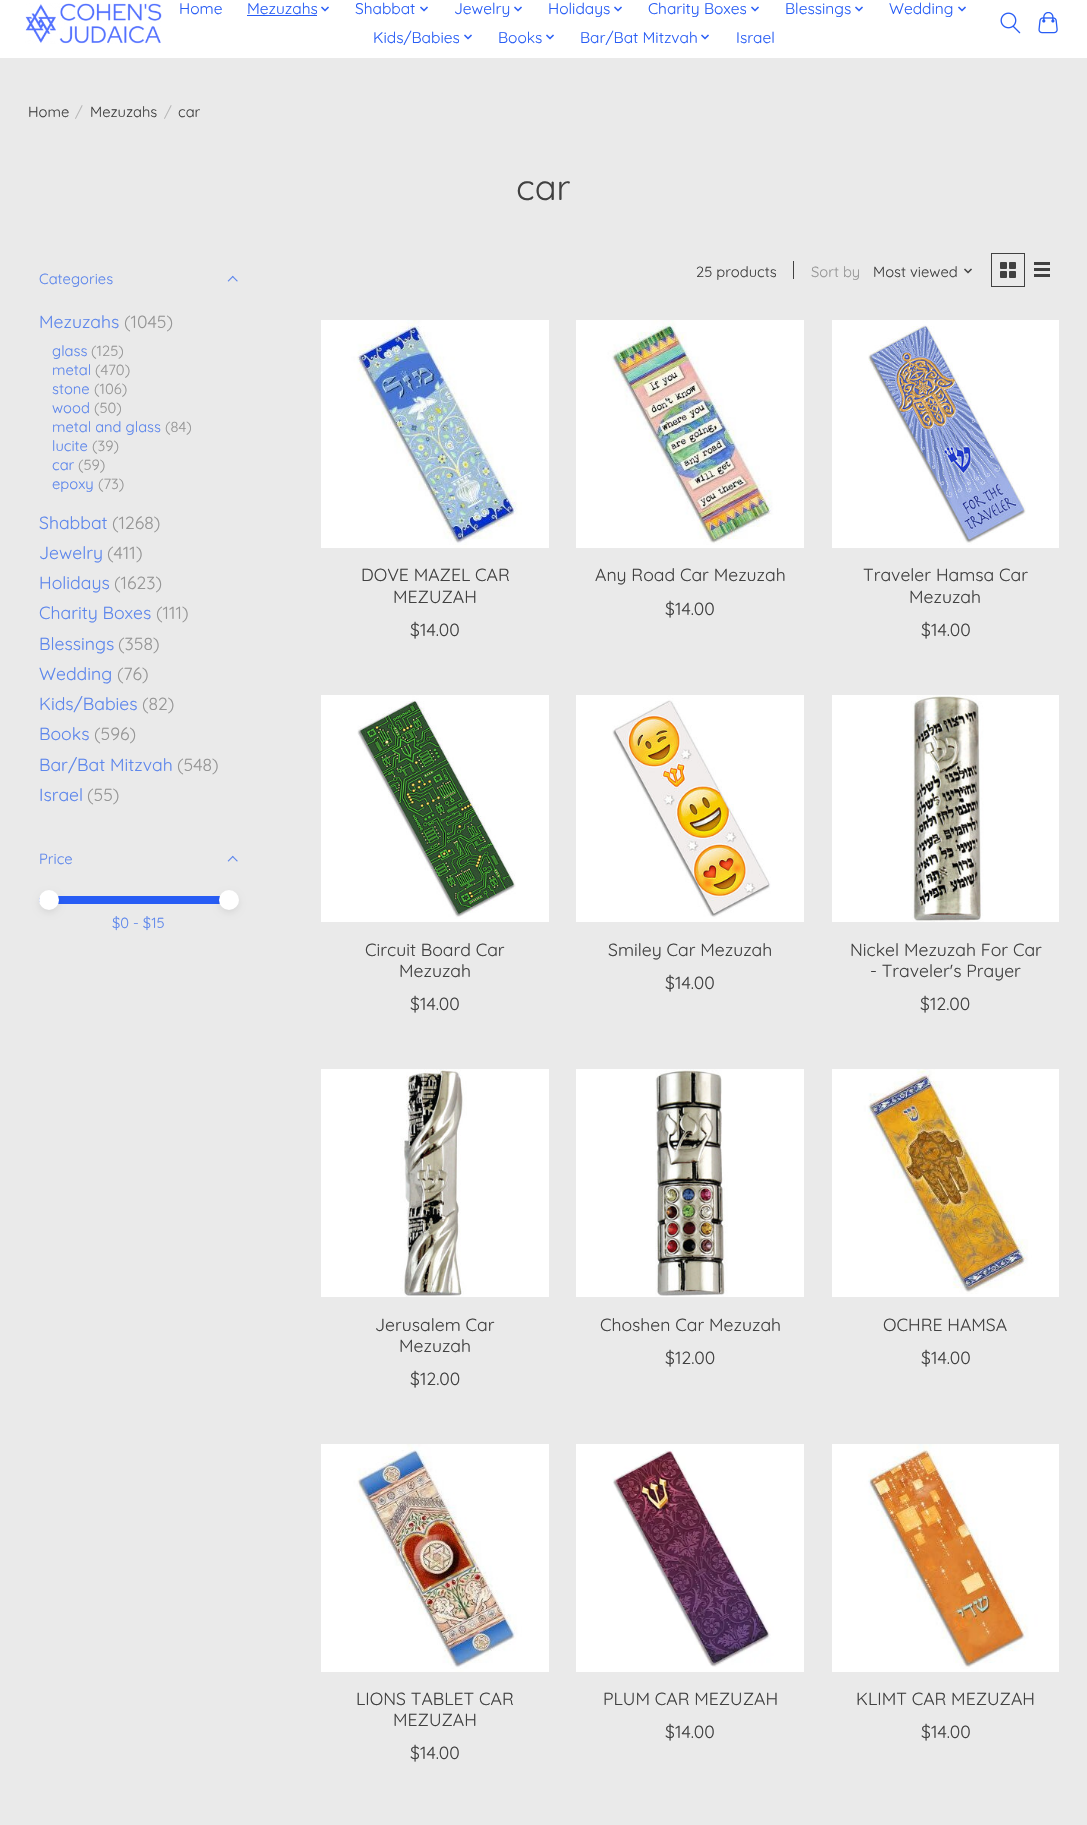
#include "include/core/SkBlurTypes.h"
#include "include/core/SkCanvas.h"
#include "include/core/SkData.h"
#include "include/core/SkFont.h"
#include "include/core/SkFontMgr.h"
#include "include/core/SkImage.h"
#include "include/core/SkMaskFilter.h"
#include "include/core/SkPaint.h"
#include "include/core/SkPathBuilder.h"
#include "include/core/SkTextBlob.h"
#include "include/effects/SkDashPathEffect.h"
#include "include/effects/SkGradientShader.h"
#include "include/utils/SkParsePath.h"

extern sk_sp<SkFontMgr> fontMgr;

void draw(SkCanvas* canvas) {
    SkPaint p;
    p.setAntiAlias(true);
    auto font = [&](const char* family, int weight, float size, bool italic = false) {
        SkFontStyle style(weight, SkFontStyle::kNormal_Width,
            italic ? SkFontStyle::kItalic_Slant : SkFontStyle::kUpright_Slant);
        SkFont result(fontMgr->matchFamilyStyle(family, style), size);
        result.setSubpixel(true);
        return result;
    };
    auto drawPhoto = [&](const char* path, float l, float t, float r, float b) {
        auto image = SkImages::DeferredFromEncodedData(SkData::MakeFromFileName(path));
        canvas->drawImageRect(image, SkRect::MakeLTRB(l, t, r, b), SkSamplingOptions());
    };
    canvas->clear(0xFFEAEAEA);
    p.setColor(0xFFFFFFFF);
    canvas->drawRect(SkRect::MakeLTRB(0, 0, 1087, 58), p);
    drawPhoto("media/1.png", 25, 3, 162, 44);
    auto font1 = font("Quicksand", 400, 15.5f);
    p.setColor(0xFF285DF5);
    canvas->drawString("Home", 179, 14, font1, p);
    canvas->drawString("Mezuzahs", 247, 14, font1, p);
    canvas->drawRect(SkRect::MakeLTRB(247, 15, 317, 16), p);
    drawPhoto("media/2.png", 321, 6, 329, 12);
    canvas->drawString("Shabbat", 355, 14, font1, p);
    drawPhoto("media/2.png", 420, 6, 428, 12);
    canvas->drawString("Jewelry", 454, 14, font1, p);
    drawPhoto("media/2.png", 514, 6, 522, 12);
    canvas->drawString("Holidays", 548, 14, font1, p);
    drawPhoto("media/2.png", 614, 6, 622, 12);
    canvas->drawString("Charity Boxes", 648, 14, font1, p);
    drawPhoto("media/2.png", 751, 6, 759, 12);
    canvas->drawString("Blessings", 785, 14, font1, p);
    drawPhoto("media/2.png", 855, 6, 863, 12);
    canvas->drawString("Wedding", 889, 14, font1, p);
    drawPhoto("media/2.png", 958, 6, 966, 12);
    canvas->drawString("Kids/Babies", 373, 43, font1, p);
    drawPhoto("media/2.png", 464, 34, 472, 40);
    canvas->drawString("Books", 498, 43, font1, p);
    drawPhoto("media/2.png", 546, 34, 554, 40);
    canvas->drawString("Bar/Bat Mitzvah", 580, 43, font1, p);
    drawPhoto("media/2.png", 701, 34, 709, 40);
    canvas->drawString("Israel", 736, 43, font1, p);
    drawPhoto("media/3.png", 1000, 12, 1021, 34);
    drawPhoto("media/4.png", 1038, 12, 1058, 34);
    auto font2 = font("Quicksand", 400, 14.75f);
    p.setColor(0xFF414141);
    canvas->drawString("Home", 28, 117, font2, p);
    p.setColor(0xFFB7B7B7);
    canvas->drawString("/", 75, 117, font2, p);
    p.setColor(0xFF414141);
    canvas->drawString("Mezuzahs", 90, 117, font2, p);
    p.setColor(0xFFB7B7B7);
    canvas->drawString("/", 164, 117, font2, p);
    p.setColor(0xFF414141);
    canvas->drawString("car", 178, 117, font2, p);
    auto font3 = font("Quicksand", 400, 36);
    canvas->drawString("car", 516, 200, font3, p);
    p.setColor(0xFF5E87EC);
    canvas->drawString("Categories", 39, 284, font2, p);
    drawPhoto("media/5.png", 227, 275, 238, 282);
    auto font4 = font("Quicksand", 400, 17.6f);
    canvas->drawString("Mezuzahs", 39, 328, font4, p);
    p.setColor(0xFF969696);
    canvas->drawString("(1045)", 124, 328, font4, p);
    p.setColor(0xFF5E87EC);
    canvas->drawString("glass", 52, 356, font2, p);
    p.setColor(0xFF969696);
    canvas->drawString("(125)", 91, 356, font2, p);
    p.setColor(0xFF5E87EC);
    canvas->drawString("metal", 52, 375, font2, p);
    p.setColor(0xFF969696);
    canvas->drawString("(470)", 95, 375, font2, p);
    p.setColor(0xFF5E87EC);
    canvas->drawString("stone", 52, 394, font2, p);
    p.setColor(0xFF969696);
    canvas->drawString("(106)", 94, 394, font2, p);
    p.setColor(0xFF5E87EC);
    canvas->drawString("wood", 52, 413, font2, p);
    p.setColor(0xFF969696);
    canvas->drawString("(50)", 94, 413, font2, p);
    p.setColor(0xFF5E87EC);
    canvas->drawString("metal and glass", 52, 432, font2, p);
    p.setColor(0xFF969696);
    canvas->drawString("(84)", 165, 432, font2, p);
    p.setColor(0xFF5E87EC);
    canvas->drawString("lucite", 52, 451, font2, p);
    p.setColor(0xFF969696);
    canvas->drawString("(39)", 92, 451, font2, p);
    p.setColor(0xFF5E87EC);
    canvas->drawString("car", 52, 470, font2, p);
    p.setColor(0xFF969696);
    canvas->drawString("(59)", 78, 470, font2, p);
    p.setColor(0xFF5E87EC);
    canvas->drawString("epoxy", 52, 489, font2, p);
    p.setColor(0xFF969696);
    canvas->drawString("(73)", 98, 489, font2, p);
    p.setColor(0xFF5E87EC);
    canvas->drawString("Shabbat", 39, 529, font4, p);
    p.setColor(0xFF969696);
    canvas->drawString("(1268)", 112, 529, font4, p);
    p.setColor(0xFF5E87EC);
    canvas->drawString("Jewelry", 39, 559, font4, p);
    p.setColor(0xFF969696);
    canvas->drawString("(411)", 107, 559, font4, p);
    p.setColor(0xFF5E87EC);
    canvas->drawString("Holidays", 39, 589, font4, p);
    p.setColor(0xFF969696);
    canvas->drawString("(1623)", 114, 589, font4, p);
    p.setColor(0xFF5E87EC);
    canvas->drawString("Charity Boxes", 39, 619, font4, p);
    p.setColor(0xFF969696);
    canvas->drawString("(111)", 156, 619, font4, p);
    p.setColor(0xFF5E87EC);
    canvas->drawString("Blessings", 39, 650, font4, p);
    p.setColor(0xFF969696);
    canvas->drawString("(358)", 118, 650, font4, p);
    p.setColor(0xFF5E87EC);
    canvas->drawString("Wedding", 39, 680, font4, p);
    p.setColor(0xFF969696);
    canvas->drawString("(76)", 117, 680, font4, p);
    p.setColor(0xFF5E87EC);
    canvas->drawString("Kids/Babies", 39, 710, font4, p);
    p.setColor(0xFF969696);
    canvas->drawString("(82)", 142, 710, font4, p);
    p.setColor(0xFF5E87EC);
    canvas->drawString("Books", 39, 740, font4, p);
    p.setColor(0xFF969696);
    canvas->drawString("(596)", 94, 740, font4, p);
    p.setColor(0xFF5E87EC);
    canvas->drawString("Bar/Bat Mitzvah", 39, 771, font4, p);
    p.setColor(0xFF969696);
    canvas->drawString("(548)", 177, 771, font4, p);
    p.setColor(0xFF5E87EC);
    canvas->drawString("Israel", 39, 801, font4, p);
    p.setColor(0xFF969696);
    canvas->drawString("(55)", 87, 801, font4, p);
    p.setColor(0xFF5E87EC);
    canvas->drawString("Price", 39, 864, font2, p);
    drawPhoto("media/5.png", 227, 855, 238, 862);
    p.setColor(0xFF285DF5);
    canvas->drawPath(SkPathBuilder().moveTo(43, 896).lineTo(229, 896).lineTo(229, 904).lineTo(43, 904).cubicTo(41, 904, 39, 902, 39, 900).cubicTo(39, 898, 41, 896, 43, 896).close().detach(), p);
    p.setColor(0x14000000);
    p.setMaskFilter(SkMaskFilter::MakeBlur(kNormal_SkBlurStyle, 3));
    canvas->drawRoundRect(SkRect::MakeLTRB(39, 893, 59, 913), 10, 10, p);
    p.setMaskFilter(nullptr);
    p.setColor(0xFFFFFFFF);
    canvas->drawCircle(49, 900, 10, p);
    p.setColor(0xFF5E87EC);
    canvas->drawString("$0 - $15", 112, 928, font2, p);
    p.setColor(0x14000000);
    p.setMaskFilter(SkMaskFilter::MakeBlur(kNormal_SkBlurStyle, 3));
    canvas->drawRoundRect(SkRect::MakeLTRB(219, 893, 239, 913), 10, 10, p);
    p.setMaskFilter(nullptr);
    p.setColor(0xFFFFFFFF);
    canvas->drawCircle(229, 900, 10, p);
    p.setColor(0xFF414141);
    canvas->drawString("25 products", 696, 277, font2, p);
    canvas->drawRect(SkRect::MakeLTRB(793, 261, 794, 279), p);
    p.setColor(0xFF969696);
    canvas->drawString("Sort by", 811, 277, font2, p);
    p.setColor(0xFF414141);
    canvas->drawString("Most viewed", 873, 277, font2, p);
    drawPhoto("media/6.png", 964, 268, 972, 274);
    p.setStyle(SkPaint::kStroke_Style);
    p.setStrokeWidth(1);
    canvas->drawRect(SkRect::MakeLTRB(991.5f, 253.5f, 1024.5f, 286.5f), p);
    drawPhoto("media/7.png", 1000, 262, 1016, 278);
    p.setStyle(SkPaint::kFill_Style);
    {
        const struct { float l, t, r, b; SkColor color; } items[] = {
            {1034, 262, 1050, 265, 0xFF414141},
            {1034, 268, 1050, 271, 0xFF414141},
            {1034, 274, 1050, 277, 0xFF414141},
        };
        for (auto [l, t, r, b, color] : items) {
            p.setColor(color);
            canvas->drawRect(SkRect::MakeLTRB(l, t, r, b), p);
        }
    }
    drawPhoto("media/8.png", 321, 320, 549, 548);
    {
        const struct { const char* s; float x, y; } items[] = {
            {"DOVE MAZEL CAR", 361, 581},
            {"MEZUZAH", 393, 603},
            {"$14.00", 410, 636},
        };
        for (auto [s, x, y] : items) {
            canvas->drawString(s, x, y, font4, p);
        }
    }
    drawPhoto("media/9.png", 576, 320, 804, 548);
    canvas->drawString("Any Road Car Mezuzah", 595, 581, font4, p);
    canvas->drawString("$14.00", 665, 615, font4, p);
    drawPhoto("media/10.png", 832, 320, 1059, 548);
    {
        const struct { const char* s; float x, y; } items[] = {
            {"Traveler Hamsa Car", 863, 581},
            {"Mezuzah", 909, 603},
            {"$14.00", 921, 636},
        };
        for (auto [s, x, y] : items) {
            canvas->drawString(s, x, y, font4, p);
        }
    }
    drawPhoto("media/11.png", 321, 695, 549, 922);
    {
        const struct { const char* s; float x, y; } items[] = {
            {"Circuit Board Car", 365, 956},
            {"Mezuzah", 399, 977},
            {"$14.00", 410, 1010},
        };
        for (auto [s, x, y] : items) {
            canvas->drawString(s, x, y, font4, p);
        }
    }
    drawPhoto("media/12.png", 576, 695, 804, 922);
    canvas->drawString("Smiley Car Mezuzah", 608, 956, font4, p);
    canvas->drawString("$14.00", 665, 989, font4, p);
    drawPhoto("media/13.png", 832, 695, 1059, 922);
    {
        const struct { const char* s; float x, y; } items[] = {
            {"Nickel Mezuzah For Car", 850, 956},
            {"- Traveler's Prayer", 870, 977},
            {"$12.00", 920, 1010},
        };
        for (auto [s, x, y] : items) {
            canvas->drawString(s, x, y, font4, p);
        }
    }
    drawPhoto("media/14.png", 321, 1069, 549, 1297);
    {
        const struct { const char* s; float x, y; } items[] = {
            {"Jerusalem Car", 375, 1331},
            {"Mezuzah", 399, 1352},
            {"$12.00", 410, 1385},
        };
        for (auto [s, x, y] : items) {
            canvas->drawString(s, x, y, font4, p);
        }
    }
    drawPhoto("media/15.png", 576, 1069, 804, 1297);
    canvas->drawString("Choshen Car Mezuzah", 600, 1331, font4, p);
    canvas->drawString("$12.00", 665, 1364, font4, p);
    drawPhoto("media/16.png", 832, 1069, 1059, 1297);
    canvas->drawString("OCHRE HAMSA", 883, 1331, font4, p);
    canvas->drawString("$14.00", 921, 1364, font4, p);
    drawPhoto("media/17.png", 321, 1444, 549, 1672);
    {
        const struct { const char* s; float x, y; } items[] = {
            {"LIONS TABLET CAR", 356, 1705},
            {"MEZUZAH", 393, 1726},
            {"$14.00", 410, 1759},
        };
        for (auto [s, x, y] : items) {
            canvas->drawString(s, x, y, font4, p);
        }
    }
    drawPhoto("media/18.png", 576, 1444, 804, 1672);
    canvas->drawString("PLUM CAR MEZUZAH", 603, 1705, font4, p);
    canvas->drawString("$14.00", 665, 1738, font4, p);
    drawPhoto("media/19.png", 832, 1444, 1059, 1672);
    canvas->drawString("KLIMT CAR MEZUZAH", 856, 1705, font4, p);
    canvas->drawString("$14.00", 921, 1738, font4, p);
}
